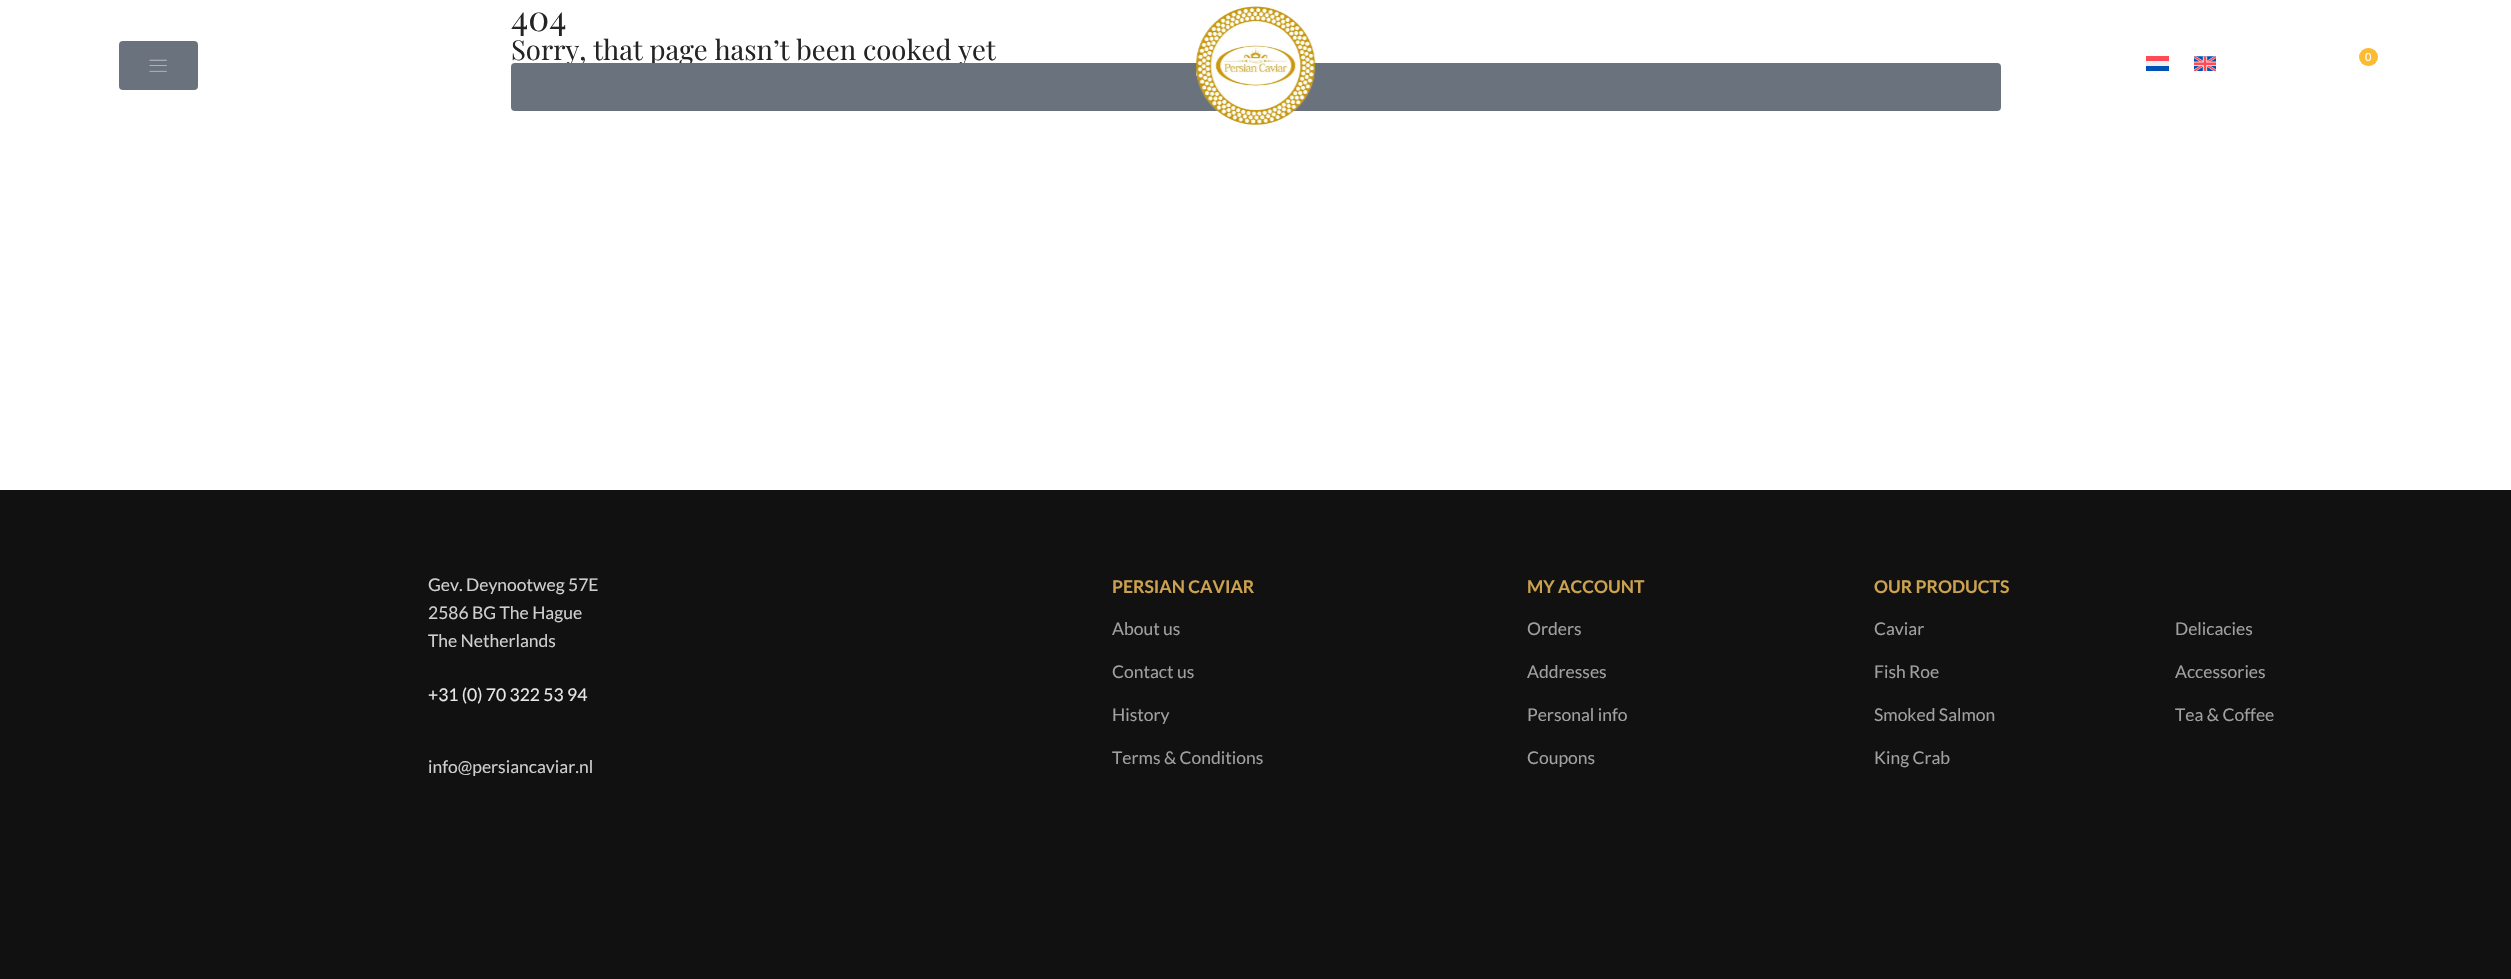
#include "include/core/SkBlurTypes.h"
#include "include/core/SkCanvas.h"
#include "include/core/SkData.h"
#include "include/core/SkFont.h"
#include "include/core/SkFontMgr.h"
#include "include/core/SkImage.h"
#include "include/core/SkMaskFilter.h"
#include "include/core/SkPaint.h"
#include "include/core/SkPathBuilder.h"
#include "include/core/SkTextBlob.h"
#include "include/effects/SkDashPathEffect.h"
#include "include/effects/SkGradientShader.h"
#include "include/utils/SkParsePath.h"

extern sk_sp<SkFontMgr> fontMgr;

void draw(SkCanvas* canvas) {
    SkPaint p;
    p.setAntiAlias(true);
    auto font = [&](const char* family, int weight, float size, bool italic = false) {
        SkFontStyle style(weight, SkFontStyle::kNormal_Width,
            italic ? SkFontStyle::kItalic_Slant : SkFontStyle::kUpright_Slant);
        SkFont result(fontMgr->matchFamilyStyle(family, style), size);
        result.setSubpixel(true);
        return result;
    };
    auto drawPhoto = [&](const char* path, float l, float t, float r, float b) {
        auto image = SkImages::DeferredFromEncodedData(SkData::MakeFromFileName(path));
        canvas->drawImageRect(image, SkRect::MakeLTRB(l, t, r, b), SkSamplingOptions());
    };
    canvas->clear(0xFFFFFFFF);
    auto font1 = font("Playfair Display", 400, 35);
    p.setColor(0xFF242424);
    canvas->drawString("404", 511, 31, font1, p);
    auto font2 = font("Playfair Display", 400, 27.5f);
    canvas->drawString("Sorry, that page hasn’t been cooked yet", 511, 60, font2, p);
    p.setColor(0xFF69727D);
    canvas->drawRoundRect(SkRect::MakeLTRB(511, 63, 2001, 111), 4, 4, p);
    canvas->drawRoundRect(SkRect::MakeLTRB(119, 41, 198, 90), 4, 4, p);
    drawPhoto("media/1.png", 149, 59, 167, 72);
    drawPhoto("media/2.png", 1196, 6, 1316, 125);
    {
        const struct { float l, t, r, b; SkColor color; } items[] = {
            {2146, 56, 2169, 61, 0xFFFF4B55},
            {2146, 61, 2169, 66, 0xFFF0F0F0},
            {2146, 66, 2169, 71, 0xFF0052B4},
        };
        for (auto [l, t, r, b, color] : items) {
            p.setColor(color);
            canvas->drawRect(SkRect::MakeLTRB(l, t, r, b), p);
        }
    }
    drawPhoto("media/3.png", 2194, 56, 2216, 71);
    p.setColor(0xFFFBBC34);
    canvas->drawRoundRect(SkRect::MakeLTRB(2359, 48, 2378, 66), 9, 9, p);
    auto font3 = font("Lato", 400, 11);
    p.setColor(0xFFFFFFFF);
    canvas->drawString("0", 2365, 61, font3, p);
    p.setColor(0xFF111111);
    canvas->drawRect(SkRect::MakeLTRB(0, 490, 2511, 979), p);
    auto font4 = font("Lato", 400, 17.5f);
    p.setColor(0xFFCFCFCF);
    {
        const struct { const char* s; float x, y; } items[] = {
            {"Gev. Deynootweg 57E", 428, 591},
            {"2586 BG The Hague", 428, 619},
            {"The Netherlands", 428, 647},
        };
        for (auto [s, x, y] : items) {
            canvas->drawString(s, x, y, font4, p);
        }
    }
    p.setColor(0xFFE7E7E7);
    canvas->drawString("+31 (0) 70 322 53 94", 428, 701, font4, p);
    p.setColor(0xFFCFCFCF);
    canvas->drawString("info@persiancaviar.nl", 428, 773, font4, p);
    auto font5 = font("Lato", 700, 17.5f);
    p.setColor(0xFFCCA24F);
    canvas->drawString("PERSIAN CAVIAR", 1112, 593, font5, p);
    p.setColor(0xFFA0A0A0);
    {
        const struct { const char* s; float x, y; } items[] = {
            {"About us", 1112, 635},
            {"Contact us", 1112, 678},
            {"History", 1112, 721},
            {"Terms & Conditions", 1112, 764},
        };
        for (auto [s, x, y] : items) {
            canvas->drawString(s, x, y, font4, p);
        }
    }
    p.setColor(0xFFCCA24F);
    canvas->drawString("MY ACCOUNT", 1527, 593, font5, p);
    p.setColor(0xFFA0A0A0);
    {
        const struct { const char* s; float x, y; } items[] = {
            {"Orders", 1527, 635},
            {"Addresses", 1527, 678},
            {"Personal info", 1527, 721},
            {"Coupons", 1527, 764},
        };
        for (auto [s, x, y] : items) {
            canvas->drawString(s, x, y, font4, p);
        }
    }
    p.setColor(0xFFCCA24F);
    canvas->drawString("OUR PRODUCTS", 1874, 593, font5, p);
    p.setColor(0xFFA0A0A0);
    {
        const struct { const char* s; float x, y; } items[] = {
            {"Caviar", 1874, 635},
            {"Fish Roe", 1874, 678},
            {"Smoked Salmon", 1874, 721},
            {"King Crab", 1874, 764},
            {"Delicacies", 2175, 635},
            {"Accessories", 2175, 678},
            {"Tea & Coffee", 2175, 721},
        };
        for (auto [s, x, y] : items) {
            canvas->drawString(s, x, y, font4, p);
        }
    }
}
